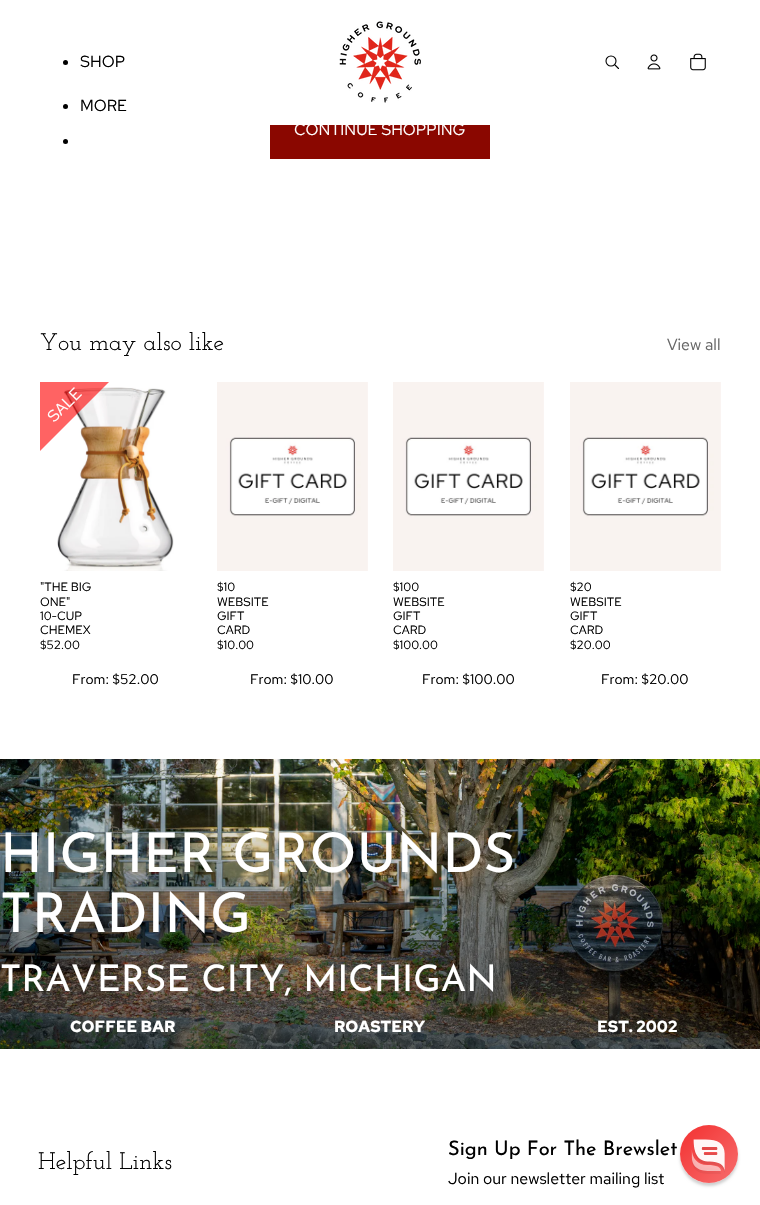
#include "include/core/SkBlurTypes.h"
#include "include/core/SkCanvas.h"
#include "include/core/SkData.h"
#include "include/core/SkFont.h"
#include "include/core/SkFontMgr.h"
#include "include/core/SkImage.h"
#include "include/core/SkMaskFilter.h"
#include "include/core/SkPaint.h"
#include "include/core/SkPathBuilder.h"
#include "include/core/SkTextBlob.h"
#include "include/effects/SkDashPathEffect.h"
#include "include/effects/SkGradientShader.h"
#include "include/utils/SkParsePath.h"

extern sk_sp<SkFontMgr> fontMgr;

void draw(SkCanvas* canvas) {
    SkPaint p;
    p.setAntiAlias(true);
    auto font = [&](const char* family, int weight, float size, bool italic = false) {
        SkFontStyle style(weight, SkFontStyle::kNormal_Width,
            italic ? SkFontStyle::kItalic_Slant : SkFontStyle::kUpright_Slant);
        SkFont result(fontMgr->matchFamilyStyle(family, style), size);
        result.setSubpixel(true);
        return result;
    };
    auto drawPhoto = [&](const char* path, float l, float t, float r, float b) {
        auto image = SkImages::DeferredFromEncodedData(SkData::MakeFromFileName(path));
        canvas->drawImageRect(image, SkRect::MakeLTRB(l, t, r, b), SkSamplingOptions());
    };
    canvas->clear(0xFFFFFFFF);
    p.setColor(0xFF000000);
    canvas->drawCircle(65.5f, 62.5f, 2.5f, p);
    auto font1 = font("Red Hat Text", 400, 16);
    canvas->drawString("SHOP", 80, 67, font1, p);
    canvas->drawCircle(65.5f, 106.5f, 2.5f, p);
    canvas->drawString("MORE", 80, 111, font1, p);
    canvas->drawCircle(65.5f, 141.5f, 2.5f, p);
    drawPhoto("media/1.png", 339, 21, 421, 103);
    p.setStyle(SkPaint::kStroke_Style);
    p.setStrokeWidth(1.1f);
    canvas->drawCircle(611, 61, 5, p);
    p.setStrokeCap(SkPaint::kRound_Cap);
    p.setStrokeJoin(SkPaint::kRound_Join);
    canvas->drawPath(SkPathBuilder().moveTo(615, 65).lineTo(618.5f, 68.5f).detach(), p);
    drawPhoto("media/2.png", 647, 54, 661, 70);
    drawPhoto("media/3.png", 690, 53, 706, 71);
    p.setStyle(SkPaint::kFill_Style);
    p.setColor(0xFF8A0700);
    canvas->drawRect(SkRect::MakeLTRB(270, 125, 490, 159), p);
    p.setColor(0xFFFFFFFF);
    canvas->drawString("CONTINUE SHOPPING", 294, 135, font1, p);
    auto font2 = font("Josefin Slab", 400, 24);
    p.setColor(0xFF000000);
    canvas->drawString("You may also like", 40, 350, font2, p);
    p.setColor(0xFF666666);
    canvas->drawString("View all", 667, 350, font1, p);
    drawPhoto("media/4.png", 57, 387, 174, 571);
    canvas->save();
    canvas->clipRect(SkRect::MakeLTRB(40, 382, 191, 570));
    p.setColor(0x9CFF0000);
    canvas->drawPath(SkPathBuilder().moveTo(-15, 425).lineTo(84, 325).lineTo(125, 366).lineTo(26, 465).close().detach(), p);
    canvas->restore();
    p.setColor(0xFFFFFFFF);
    canvas->save();
    canvas->rotate(-45, 54, 423);
    canvas->drawString("SALE", 54, 423, font1, p);
    canvas->restore();
    auto font3 = font("Red Hat Text", 400, 12);
    p.setColor(0xFF000000);
    {
        const struct { const char* s; float x, y; } items[] = {
            {"\"THE BIG", 40, 591},
            {"ONE\"", 40, 606},
            {"10-CUP", 40, 620},
            {"CHEMEX", 40, 634},
            {"$52.00", 40, 649},
        };
        for (auto [s, x, y] : items) {
            canvas->drawString(s, x, y, font3, p);
        }
    }
    auto font4 = font("Red Hat Text", 400, 14);
    canvas->drawString("From: $52.00", 72, 684, font4, p);
    drawPhoto("media/5.png", 217, 382, 368, 571);
    {
        const struct { const char* s; float x, y; } items[] = {
            {"$10", 217, 591},
            {"WEBSITE", 217, 606},
            {"GIFT", 217, 620},
            {"CARD", 217, 634},
            {"$10.00", 217, 649},
        };
        for (auto [s, x, y] : items) {
            canvas->drawString(s, x, y, font3, p);
        }
    }
    canvas->drawString("From: $10.00", 250, 684, font4, p);
    drawPhoto("media/6.png", 393, 382, 544, 571);
    {
        const struct { const char* s; float x, y; } items[] = {
            {"$100", 393, 591},
            {"WEBSITE", 393, 606},
            {"GIFT", 393, 620},
            {"CARD", 393, 634},
            {"$100.00", 393, 649},
        };
        for (auto [s, x, y] : items) {
            canvas->drawString(s, x, y, font3, p);
        }
    }
    canvas->drawString("From: $100.00", 422, 684, font4, p);
    drawPhoto("media/6.png", 570, 382, 721, 571);
    {
        const struct { const char* s; float x, y; } items[] = {
            {"$20", 570, 591},
            {"WEBSITE", 570, 606},
            {"GIFT", 570, 620},
            {"CARD", 570, 634},
            {"$20.00", 570, 649},
        };
        for (auto [s, x, y] : items) {
            canvas->drawString(s, x, y, font3, p);
        }
    }
    canvas->drawString("From: $20.00", 601, 684, font4, p);
    drawPhoto("media/7.png", 0, 759, 760, 1049);
    auto font5 = font("Josefin Sans", 100, 54.75f);
    p.setColor(0xFFFFFFFF);
    canvas->drawString("HIGHER GROUNDS", 0, 872, font5, p);
    canvas->drawString("TRADING", 0, 932, font5, p);
    auto font6 = font("Josefin Sans", 100, 36.5f);
    canvas->drawString("TRAVERSE CITY, MICHIGAN", 0, 991, font6, p);
    auto font7 = font("Red Hat Text", 700, 16);
    {
        const struct { const char* s; float x, y; } items[] = {
            {"COFFEE BAR", 70, 1032},
            {"ROASTERY", 334, 1032},
            {"EST. 2002", 597, 1032},
        };
        for (auto [s, x, y] : items) {
            canvas->drawString(s, x, y, font7, p);
        }
    }
    p.setColor(0xFF000000);
    canvas->drawString("Helpful Links", 38, 1169, font2, p);
    auto font8 = font("Josefin Sans", 100, 20);
    canvas->drawString("Sign Up For The Brewslet", 448, 1155, font8, p);
    canvas->drawString("Join our newsletter mailing list", 448, 1184, font1, p);
    canvas->save();
    canvas->clipPath(SkPathBuilder(SkPathFillType::kEvenOdd).moveTo(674, 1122).lineTo(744, 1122).lineTo(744, 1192).lineTo(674, 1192).close().moveTo(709, 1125).cubicTo(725, 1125, 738, 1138, 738, 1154).cubicTo(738, 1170, 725, 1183, 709, 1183).cubicTo(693, 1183, 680, 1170, 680, 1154).cubicTo(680, 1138, 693, 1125, 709, 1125).close().detach(), true);
    p.setColor(0x30000000);
    p.setMaskFilter(SkMaskFilter::MakeBlur(kNormal_SkBlurStyle, 1.5f));
    canvas->drawRoundRect(SkRect::MakeLTRB(680, 1128, 738, 1186), 29, 29, p);
    p.setMaskFilter(nullptr);
    canvas->restore();
    {
        const SkColor colors[] = {0xF2F22525, 0xF2F66666};
        const float stops[] = {0, 1};
        const SkPoint ends[] = {{680, 1125}, {738, 1183}};
        p.setShader(SkGradientShader::MakeLinear(ends, colors, stops, 2, SkTileMode::kClamp));
        p.setAlpha(255);
    }
    canvas->drawCircle(709, 1154, 29, p);
    drawPhoto("media/8.png", 691, 1139, 725, 1174);
}
